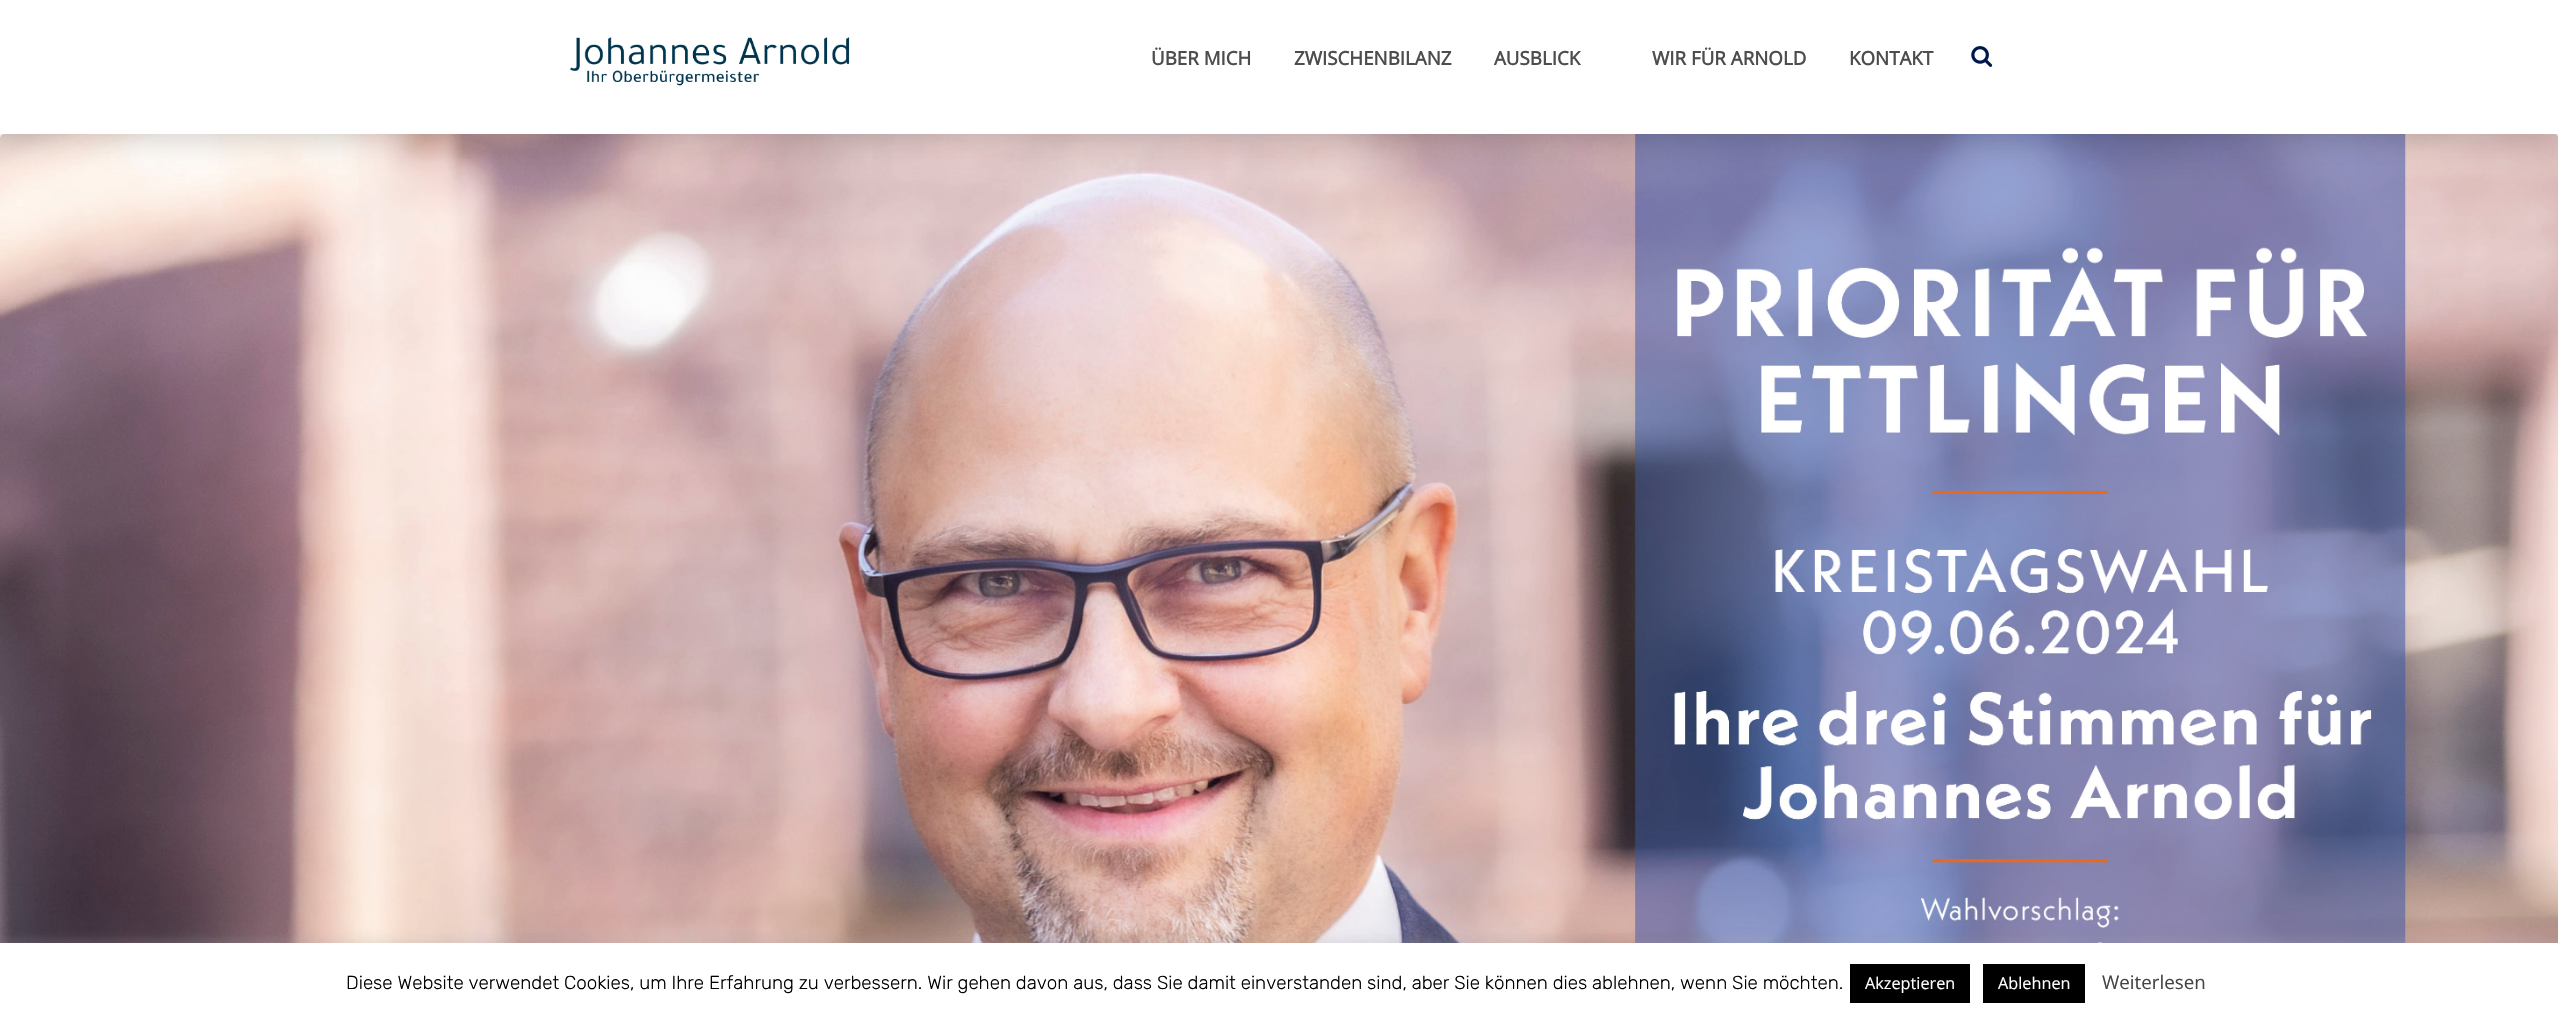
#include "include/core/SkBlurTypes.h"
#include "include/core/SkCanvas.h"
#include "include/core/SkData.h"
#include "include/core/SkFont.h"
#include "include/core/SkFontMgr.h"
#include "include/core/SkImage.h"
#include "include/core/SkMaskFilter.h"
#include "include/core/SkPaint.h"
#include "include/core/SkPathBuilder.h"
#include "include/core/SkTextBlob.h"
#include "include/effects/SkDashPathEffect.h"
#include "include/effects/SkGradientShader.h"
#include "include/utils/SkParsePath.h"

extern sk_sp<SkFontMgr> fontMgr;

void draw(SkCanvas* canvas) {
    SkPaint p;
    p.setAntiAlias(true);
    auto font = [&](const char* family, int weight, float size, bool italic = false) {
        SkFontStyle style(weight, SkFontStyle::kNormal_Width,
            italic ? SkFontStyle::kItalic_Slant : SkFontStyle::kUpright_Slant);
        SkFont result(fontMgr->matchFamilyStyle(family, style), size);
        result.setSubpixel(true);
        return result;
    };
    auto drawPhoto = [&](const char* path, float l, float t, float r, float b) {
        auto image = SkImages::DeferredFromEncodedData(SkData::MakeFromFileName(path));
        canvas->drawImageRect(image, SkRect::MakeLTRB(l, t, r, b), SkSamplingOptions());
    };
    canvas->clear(0xFFFFFFFF);
    drawPhoto("media/3.png", 0, 134, 2558, 943);
    p.setColor(0x38050606);
    p.setMaskFilter(SkMaskFilter::MakeBlur(kNormal_SkBlurStyle, 17));
    canvas->drawRect(SkRect::MakeLTRB(0, 0, 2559, 134), p);
    p.setMaskFilter(nullptr);
    p.setColor(0xFFFFFFFF);
    canvas->drawRect(SkRect::MakeLTRB(0, 0, 2558, 134), p);
    drawPhoto("media/1.png", 570, 37, 850, 86);
    auto font1 = font("Open Sans", 700, 18.75f);
    p.setColor(0xFF4D4D4D);
    {
        const struct { const char* s; float x, y; } items[] = {
            {"ÜBER MICH", 1151, 65},
            {"ZWISCHENBILANZ", 1294, 65},
            {"AUSBLICK", 1494, 65},
            {"WIR FÜR ARNOLD", 1652, 65},
            {"KONTAKT", 1849, 65},
        };
        for (auto [s, x, y] : items) {
            canvas->drawString(s, x, y, font1, p);
        }
    }
    drawPhoto("media/2.png", 1971, 46, 1993, 67);
    p.setColor(0x4DACABAB);
    p.setMaskFilter(SkMaskFilter::MakeBlur(kNormal_SkBlurStyle, 6));
    canvas->drawRect(SkRect::MakeLTRB(0, 941, 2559, 1023), p);
    p.setMaskFilter(nullptr);
    p.setColor(0xFFFFFFFF);
    canvas->drawRect(SkRect::MakeLTRB(0, 943, 2558, 1023), p);
    auto font2 = font("Rubik", 300, 18.75f);
    p.setColor(0xFF000000);
    canvas->drawString("Diese Website verwendet Cookies, um Ihre Erfahrung zu verbessern. Wir gehen davon aus, dass Sie damit einverstanden sind, aber Sie können dies ablehnen, wenn Sie möchten.", 346, 989, font2, p);
    canvas->drawRect(SkRect::MakeLTRB(1850, 964, 1970, 1003), p);
    auto font3 = font("Open Sans", 400, 16.25f);
    p.setColor(0xFFFFFFFF);
    canvas->drawString("Akzeptieren", 1865, 989, font3, p);
    p.setColor(0xFF000000);
    canvas->drawRect(SkRect::MakeLTRB(1983, 964, 2085, 1003), p);
    p.setColor(0xFFFFFFFF);
    canvas->drawString("Ablehnen", 1998, 989, font3, p);
    auto font4 = font("Open Sans", 400, 18.75f);
    p.setColor(0xFF444444);
    canvas->drawString("Weiterlesen", 2102, 989, font4, p);
}
